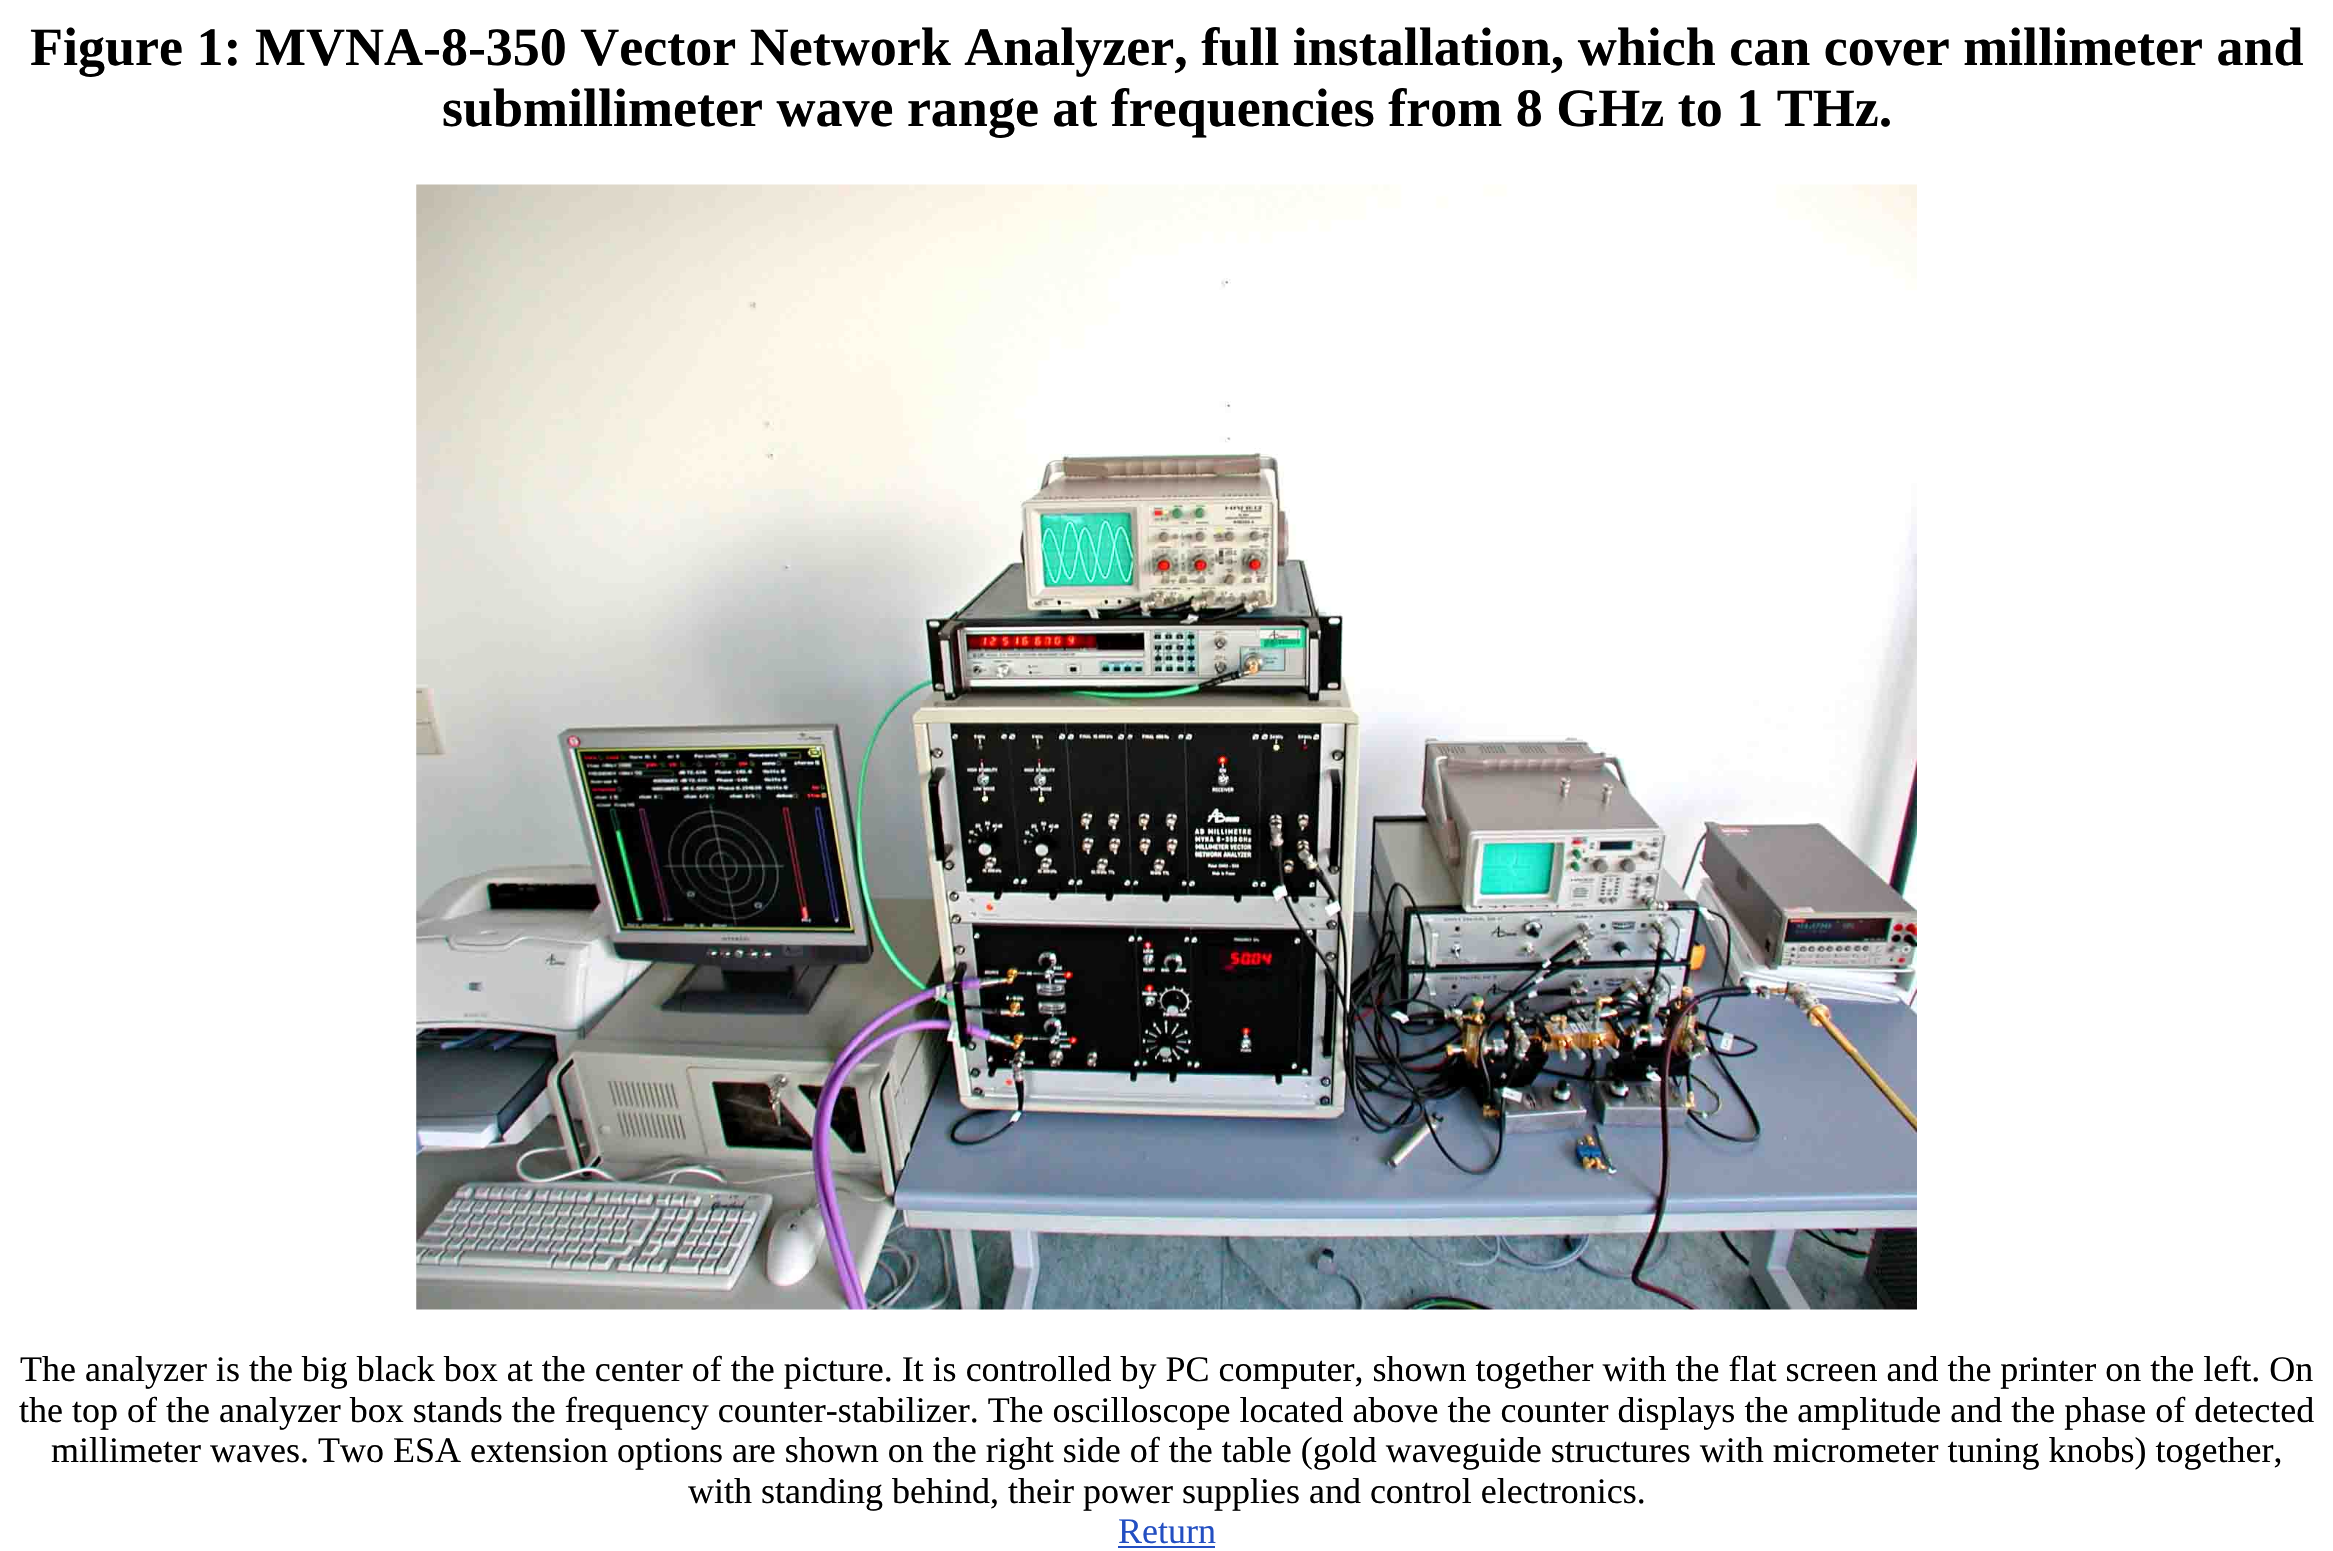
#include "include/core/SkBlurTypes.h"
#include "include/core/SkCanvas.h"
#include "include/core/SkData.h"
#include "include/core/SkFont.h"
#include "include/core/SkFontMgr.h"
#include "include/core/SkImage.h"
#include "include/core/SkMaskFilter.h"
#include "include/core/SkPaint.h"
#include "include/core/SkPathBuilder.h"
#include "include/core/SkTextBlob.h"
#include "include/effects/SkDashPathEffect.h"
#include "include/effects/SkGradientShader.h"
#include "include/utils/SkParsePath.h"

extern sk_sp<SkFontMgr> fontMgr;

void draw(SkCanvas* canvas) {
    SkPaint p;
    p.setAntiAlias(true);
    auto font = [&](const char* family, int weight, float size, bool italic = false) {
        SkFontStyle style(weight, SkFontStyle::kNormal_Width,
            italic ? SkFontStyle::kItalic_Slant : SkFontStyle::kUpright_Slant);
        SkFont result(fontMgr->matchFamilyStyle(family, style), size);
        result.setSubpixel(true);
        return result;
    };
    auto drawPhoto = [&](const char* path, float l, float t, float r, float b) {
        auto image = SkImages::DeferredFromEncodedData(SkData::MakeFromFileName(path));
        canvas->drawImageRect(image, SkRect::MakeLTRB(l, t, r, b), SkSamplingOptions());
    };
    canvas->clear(0xFFFFFFFF);
    auto font1 = font("Liberation Serif", 700, 54);
    p.setColor(0xFF000000);
    canvas->drawString("Figure 1: MVNA-8-350 Vector Network Analyzer, full installation, which can cover millimeter and", 30, 65, font1, p);
    canvas->drawString("submillimeter wave range at frequencies from 8 GHz to 1 THz.", 442, 126, font1, p);
    drawPhoto("media/1.png", 416, 184, 1917, 1310);
    auto font2 = font("Liberation Serif", 400, 36);
    {
        const struct { const char* s; float x, y; } items[] = {
            {"The analyzer is the big black box at the center of the picture. It is controlled by PC computer, shown together with the flat screen and the printer on the left. On", 20, 1381},
            {"the top of the analyzer box stands the frequency counter-stabilizer. The oscilloscope located above the counter displays the amplitude and the phase of detected", 19, 1422},
            {"millimeter waves. Two ESA extension options are shown on the right side of the table (gold waveguide structures with micrometer tuning knobs) together,", 51, 1462},
            {"with standing behind, their power supplies and control electronics.", 688, 1503},
        };
        for (auto [s, x, y] : items) {
            canvas->drawString(s, x, y, font2, p);
        }
    }
    p.setColor(0xFF234FC2);
    canvas->drawString("Return", 1118, 1543, font2, p);
    canvas->drawRect(SkRect::MakeLTRB(1118, 1546, 1215, 1548), p);
}
